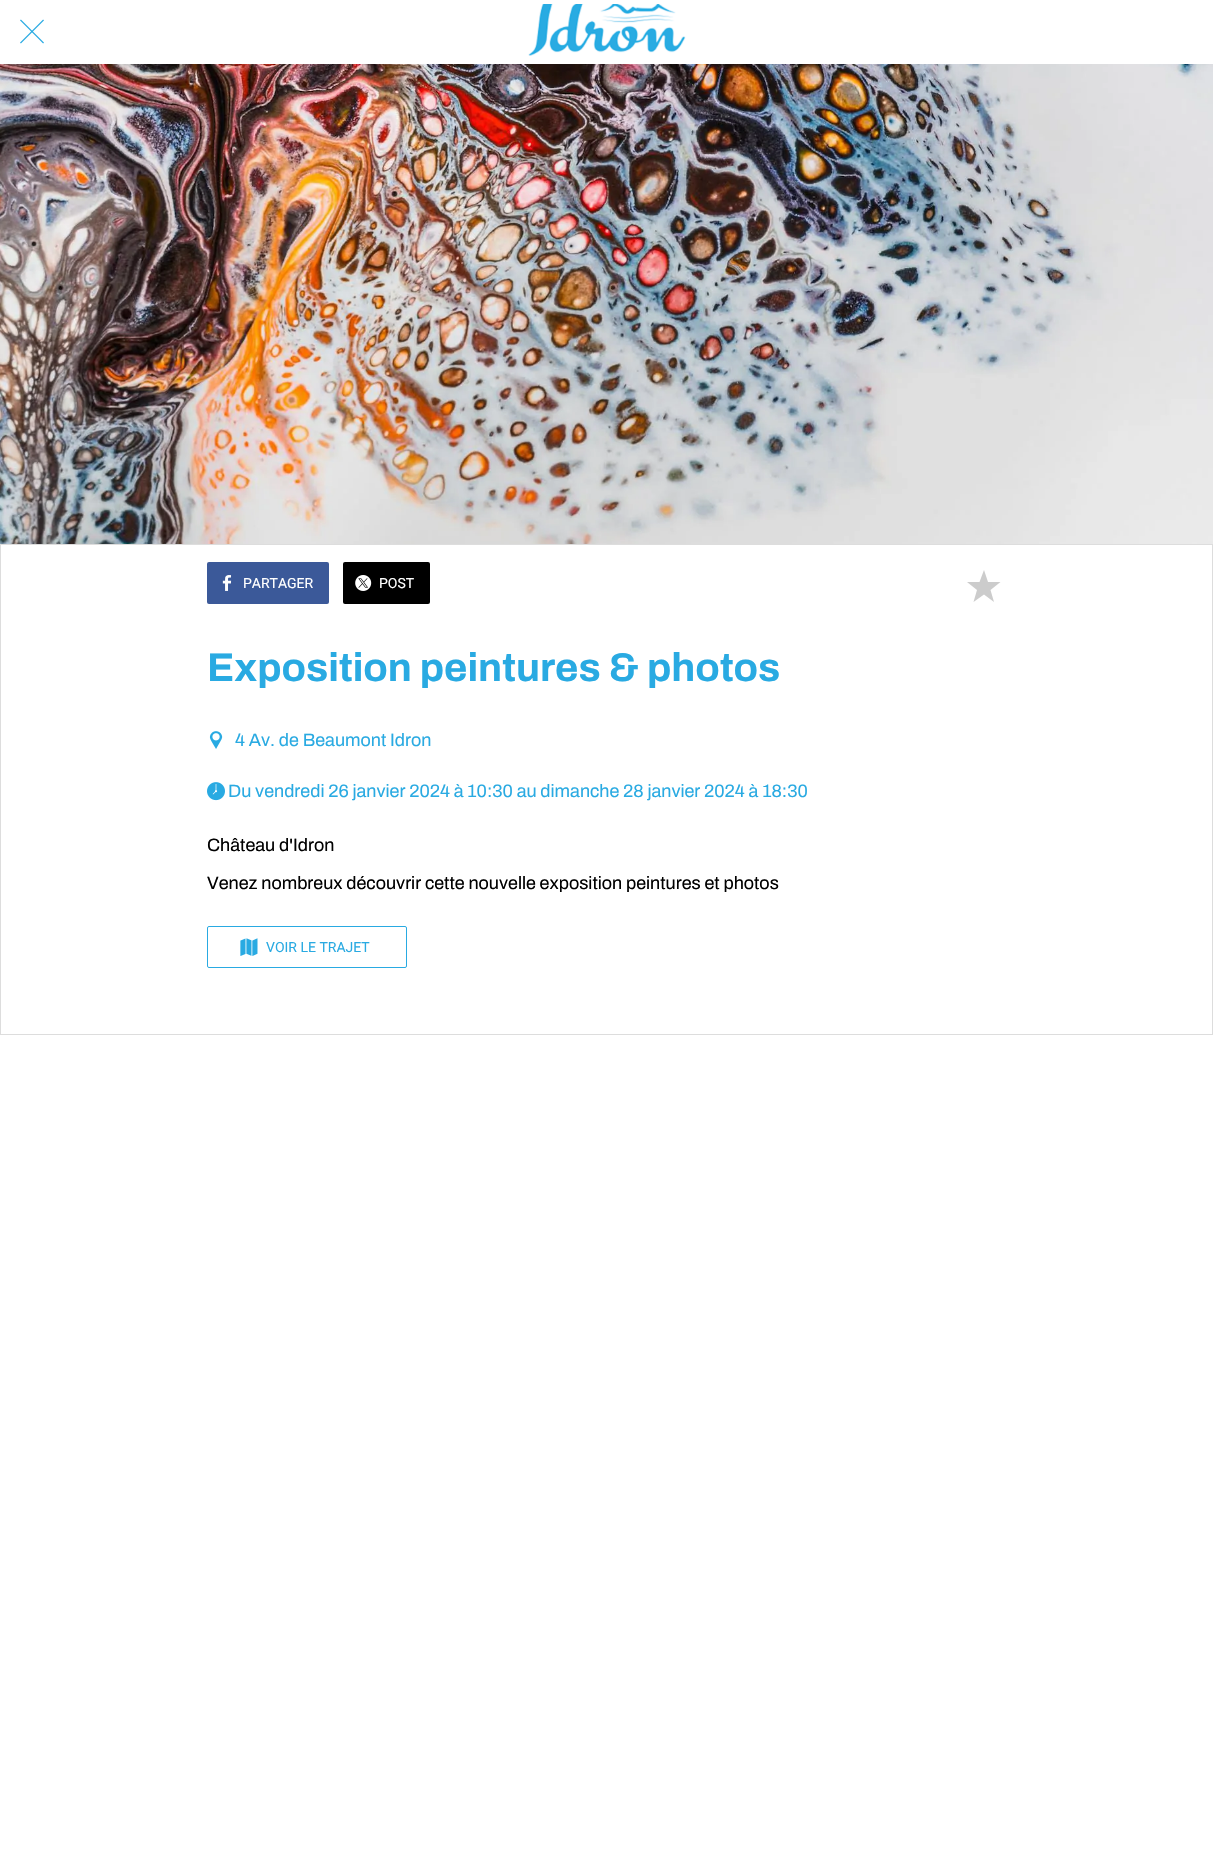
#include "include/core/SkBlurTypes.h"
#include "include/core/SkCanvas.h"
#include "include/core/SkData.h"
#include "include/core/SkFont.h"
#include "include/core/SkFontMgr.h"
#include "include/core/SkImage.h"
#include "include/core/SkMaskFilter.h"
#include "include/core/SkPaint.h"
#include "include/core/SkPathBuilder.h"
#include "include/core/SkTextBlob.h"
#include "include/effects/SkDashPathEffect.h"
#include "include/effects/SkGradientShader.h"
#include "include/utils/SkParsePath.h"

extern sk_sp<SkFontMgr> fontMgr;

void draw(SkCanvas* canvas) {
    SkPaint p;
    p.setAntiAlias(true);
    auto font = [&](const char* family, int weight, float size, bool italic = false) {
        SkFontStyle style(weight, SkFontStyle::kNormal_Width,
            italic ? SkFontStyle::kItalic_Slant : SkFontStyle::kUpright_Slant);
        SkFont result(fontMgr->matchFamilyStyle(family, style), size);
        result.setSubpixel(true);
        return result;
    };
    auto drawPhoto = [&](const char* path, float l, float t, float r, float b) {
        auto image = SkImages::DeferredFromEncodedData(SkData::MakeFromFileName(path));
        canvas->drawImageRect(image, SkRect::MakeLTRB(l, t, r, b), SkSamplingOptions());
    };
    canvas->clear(0xFFFFFFFF);
    drawPhoto("media/1.png", 20, 19, 44, 44);
    drawPhoto("media/2.png", 528, 4, 686, 56);
    drawPhoto("media/3.png", 0, 64, 1213, 544);
    p.setStyle(SkPaint::kStroke_Style);
    p.setStrokeWidth(1);
    p.setColor(0xFFDDDDDD);
    canvas->drawRect(SkRect::MakeLTRB(0.5f, 544.5f, 1212.5f, 1034.5f), p);
    p.setStyle(SkPaint::kFill_Style);
    p.setColor(0xFF3B5999);
    canvas->drawRoundRect(SkRect::MakeLTRB(207, 562, 329, 604), 2, 2, p);
    drawPhoto("media/4.png", 222, 575, 232, 591);
    auto font1 = font("Roboto", 400, 14);
    p.setColor(0xFFFFFFFF);
    canvas->drawString("PARTAGER", 243, 588, font1, p);
    p.setColor(0xFF000000);
    canvas->drawRoundRect(SkRect::MakeLTRB(343, 562, 430, 604), 2, 2, p);
    drawPhoto("media/5.png", 355, 575, 372, 591);
    p.setColor(0xFFFFFFFF);
    canvas->drawString("POST", 379, 588, font1, p);
    p.setColor(0xFFCCCCCC);
    canvas->drawPath(SkPathBuilder().moveTo(1000.5f, 582).lineTo(988, 582).lineTo(984, 570).lineTo(979.5f, 582).lineTo(967, 582).lineTo(977, 590).lineTo(973.5f, 602).lineTo(984, 594.5f).lineTo(994, 602).lineTo(990.5f, 590).close().detach(), p);
    auto font2 = font("Archivo", 700, 40);
    p.setColor(0xFF29AAE2);
    canvas->drawString("Exposition peintures & photos", 207, 681, font2, p);
    drawPhoto("media/6.png", 209, 731, 223, 749);
    auto font3 = font("Archivo", 400, 18);
    canvas->drawString("4 Av. de Beaumont Idron", 235, 746, font3, p);
    drawPhoto("media/7.png", 207, 782, 225, 801);
    canvas->drawString("Du vendredi 26 janvier 2024 à 10:30 au dimanche 28 janvier 2024 à 18:30", 228, 797, font3, p);
    p.setColor(0xFF000000);
    canvas->drawString("Château d'Idron", 207, 851, font3, p);
    canvas->drawString("Venez nombreux découvrir cette nouvelle exposition peintures et photos", 207, 889, font3, p);
    p.setStyle(SkPaint::kStroke_Style);
    p.setColor(0xFF29AAE2);
    canvas->drawRoundRect(SkRect::MakeLTRB(207.5f, 926.5f, 406.5f, 967.5f), 1.5f, 1.5f, p);
    drawPhoto("media/8.png", 240, 938, 258, 956);
    p.setStyle(SkPaint::kFill_Style);
    canvas->drawString("VOIR LE TRAJET", 266, 952, font1, p);
}
